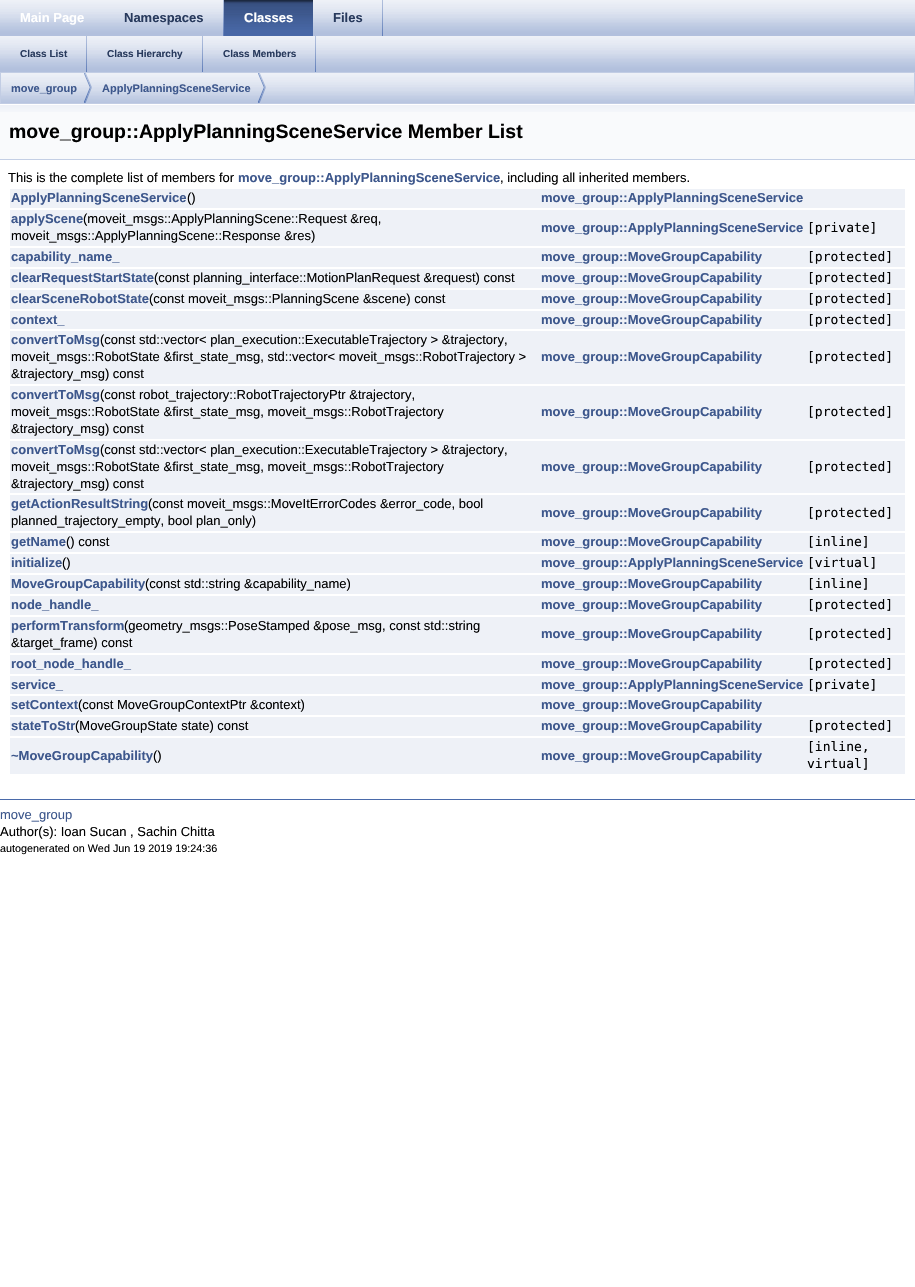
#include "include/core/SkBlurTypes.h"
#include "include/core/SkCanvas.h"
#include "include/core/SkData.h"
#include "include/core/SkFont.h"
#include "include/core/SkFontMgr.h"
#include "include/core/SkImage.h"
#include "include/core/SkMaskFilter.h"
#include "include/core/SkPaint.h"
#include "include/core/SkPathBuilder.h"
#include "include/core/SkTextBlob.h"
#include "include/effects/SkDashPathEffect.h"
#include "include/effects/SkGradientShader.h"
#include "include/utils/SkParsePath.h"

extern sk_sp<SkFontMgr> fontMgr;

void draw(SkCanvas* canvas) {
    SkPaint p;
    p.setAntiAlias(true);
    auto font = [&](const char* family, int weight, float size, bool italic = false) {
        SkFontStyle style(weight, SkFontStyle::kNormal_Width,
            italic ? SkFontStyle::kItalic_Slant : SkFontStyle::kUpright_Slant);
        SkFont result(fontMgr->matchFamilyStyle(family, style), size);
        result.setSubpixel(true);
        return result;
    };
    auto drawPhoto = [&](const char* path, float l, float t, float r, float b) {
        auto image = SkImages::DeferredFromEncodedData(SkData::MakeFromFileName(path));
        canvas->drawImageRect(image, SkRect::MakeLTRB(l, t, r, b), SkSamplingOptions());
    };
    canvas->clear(0xFFFFFFFF);
    drawPhoto("media/1.png", 0, 0, 915, 36);
    auto font1 = font("Liberation Sans", 700, 13);
    p.setColor(0xFFFFFFFF);
    canvas->drawString("Main Page", 20, 22, font1, p);
    drawPhoto("media/2.png", 223, 0, 224, 36);
    p.setColor(0xFF283A5D);
    canvas->drawString("Namespaces", 124, 22, font1, p);
    drawPhoto("media/3.png", 224, 0, 313, 36);
    p.setColor(0xFFFFFFFF);
    canvas->drawString("Classes", 244, 22, font1, p);
    drawPhoto("media/2.png", 382, 0, 383, 36);
    p.setColor(0xFF283A5D);
    canvas->drawString("Files", 333, 22, font1, p);
    drawPhoto("media/1.png", 0, 36, 915, 72);
    drawPhoto("media/2.png", 86, 36, 87, 72);
    auto font2 = font("Liberation Sans", 700, 10);
    canvas->drawString("Class List", 20, 57, font2, p);
    drawPhoto("media/2.png", 202, 36, 203, 72);
    canvas->drawString("Class Hierarchy", 107, 57, font2, p);
    drawPhoto("media/2.png", 315, 36, 316, 72);
    canvas->drawString("Class Members", 223, 57, font2, p);
    drawPhoto("media/4.png", 1, 73, 914, 103);
    p.setStyle(SkPaint::kStroke_Style);
    p.setStrokeWidth(1);
    p.setColor(0xFFC2CDE4);
    canvas->drawRect(SkRect::MakeLTRB(0.5f, 72.5f, 914.5f, 103.5f), p);
    drawPhoto("media/5.png", 84, 73, 92, 103);
    auto font3 = font("Liberation Sans", 700, 11);
    p.setStyle(SkPaint::kFill_Style);
    p.setColor(0xFF3D578C);
    canvas->drawString("move_group", 11, 92, font3, p);
    drawPhoto("media/5.png", 258, 73, 266, 103);
    canvas->drawString("ApplyPlanningSceneService", 102, 92, font3, p);
    p.setColor(0xFFF9FAFC);
    canvas->drawRect(SkRect::MakeLTRB(0, 112, 915, 159), p);
    drawPhoto("media/6.png", 0, 104, 915, 112);
    p.setColor(0xFFC4CFE5);
    canvas->drawRect(SkRect::MakeLTRB(0, 159, 915, 160), p);
    auto font4 = font("Liberation Sans", 700, 19.5f);
    p.setColor(0xFF000000);
    canvas->drawString("move_group::ApplyPlanningSceneService Member List", 9, 138, font4, p);
    auto font5 = font("Liberation Sans", 400, 13);
    canvas->drawString("This is the complete list of members for", 8, 182, font5, p);
    p.setColor(0xFF3D578C);
    canvas->drawString("move_group::ApplyPlanningSceneService", 238, 182, font1, p);
    p.setColor(0xFF000000);
    canvas->drawString(", including all inherited members.", 500, 182, font5, p);
    p.setColor(0xFFEEF1F7);
    canvas->drawRect(SkRect::MakeLTRB(10, 189, 905, 208), p);
    p.setColor(0xFF3D578C);
    canvas->drawString("ApplyPlanningSceneService", 11, 202, font1, p);
    p.setColor(0xFF000000);
    canvas->drawString("()", 187, 202, font5, p);
    p.setColor(0xFF3D578C);
    canvas->drawString("move_group::ApplyPlanningSceneService", 541, 202, font1, p);
    p.setColor(0xFFEEF1F7);
    canvas->drawRect(SkRect::MakeLTRB(10, 210, 905, 246), p);
    p.setColor(0xFF3D578C);
    canvas->drawString("applyScene", 11, 223, font1, p);
    p.setColor(0xFF000000);
    canvas->drawString("(moveit_msgs::ApplyPlanningScene::Request &req,", 83, 223, font5, p);
    canvas->drawString("moveit_msgs::ApplyPlanningScene::Response &res)", 11, 240, font5, p);
    p.setColor(0xFF3D578C);
    canvas->drawString("move_group::ApplyPlanningSceneService", 541, 232, font1, p);
    auto font6 = font("DejaVu Sans Mono", 400, 13);
    p.setColor(0xFF000000);
    canvas->drawString("[private]", 807, 232, font6, p);
    p.setColor(0xFFEEF1F7);
    canvas->drawRect(SkRect::MakeLTRB(10, 248, 905, 267), p);
    p.setColor(0xFF3D578C);
    canvas->drawString("capability_name_", 11, 261, font1, p);
    canvas->drawString("move_group::MoveGroupCapability", 541, 261, font1, p);
    p.setColor(0xFF000000);
    canvas->drawString("[protected]", 807, 261, font6, p);
    p.setColor(0xFFEEF1F7);
    canvas->drawRect(SkRect::MakeLTRB(10, 269, 905, 288), p);
    p.setColor(0xFF3D578C);
    canvas->drawString("clearRequestStartState", 11, 282, font1, p);
    p.setColor(0xFF000000);
    canvas->drawString("(const planning_interface::MotionPlanRequest &request) const", 154, 282, font5, p);
    p.setColor(0xFF3D578C);
    canvas->drawString("move_group::MoveGroupCapability", 541, 282, font1, p);
    p.setColor(0xFF000000);
    canvas->drawString("[protected]", 807, 282, font6, p);
    p.setColor(0xFFEEF1F7);
    canvas->drawRect(SkRect::MakeLTRB(10, 290, 905, 309), p);
    p.setColor(0xFF3D578C);
    canvas->drawString("clearSceneRobotState", 11, 303, font1, p);
    p.setColor(0xFF000000);
    canvas->drawString("(const moveit_msgs::PlanningScene &scene) const", 149, 303, font5, p);
    p.setColor(0xFF3D578C);
    canvas->drawString("move_group::MoveGroupCapability", 541, 303, font1, p);
    p.setColor(0xFF000000);
    canvas->drawString("[protected]", 807, 303, font6, p);
    p.setColor(0xFFEEF1F7);
    canvas->drawRect(SkRect::MakeLTRB(10, 311, 905, 329), p);
    p.setColor(0xFF3D578C);
    canvas->drawString("context_", 11, 324, font1, p);
    canvas->drawString("move_group::MoveGroupCapability", 541, 324, font1, p);
    p.setColor(0xFF000000);
    canvas->drawString("[protected]", 807, 324, font6, p);
    p.setColor(0xFFEEF1F7);
    canvas->drawRect(SkRect::MakeLTRB(10, 331, 905, 384), p);
    p.setColor(0xFF3D578C);
    canvas->drawString("convertToMsg", 11, 344, font1, p);
    p.setColor(0xFF000000);
    {
        const struct { const char* s; float x, y; } items[] = {
            {"(const std::vector< plan_execution::ExecutableTrajectory > &trajectory,", 100, 344},
            {"moveit_msgs::RobotState &first_state_msg, std::vector< moveit_msgs::RobotTrajectory >", 11, 361},
            {"&trajectory_msg) const", 11, 378},
        };
        for (auto [s, x, y] : items) {
            canvas->drawString(s, x, y, font5, p);
        }
    }
    p.setColor(0xFF3D578C);
    canvas->drawString("move_group::MoveGroupCapability", 541, 361, font1, p);
    p.setColor(0xFF000000);
    canvas->drawString("[protected]", 807, 361, font6, p);
    p.setColor(0xFFEEF1F7);
    canvas->drawRect(SkRect::MakeLTRB(10, 386, 905, 439), p);
    p.setColor(0xFF3D578C);
    canvas->drawString("convertToMsg", 11, 399, font1, p);
    p.setColor(0xFF000000);
    {
        const struct { const char* s; float x, y; } items[] = {
            {"(const robot_trajectory::RobotTrajectoryPtr &trajectory,", 100, 399},
            {"moveit_msgs::RobotState &first_state_msg, moveit_msgs::RobotTrajectory", 11, 416},
            {"&trajectory_msg) const", 11, 433},
        };
        for (auto [s, x, y] : items) {
            canvas->drawString(s, x, y, font5, p);
        }
    }
    p.setColor(0xFF3D578C);
    canvas->drawString("move_group::MoveGroupCapability", 541, 416, font1, p);
    p.setColor(0xFF000000);
    canvas->drawString("[protected]", 807, 416, font6, p);
    p.setColor(0xFFEEF1F7);
    canvas->drawRect(SkRect::MakeLTRB(10, 441, 905, 493), p);
    p.setColor(0xFF3D578C);
    canvas->drawString("convertToMsg", 11, 454, font1, p);
    p.setColor(0xFF000000);
    {
        const struct { const char* s; float x, y; } items[] = {
            {"(const std::vector< plan_execution::ExecutableTrajectory > &trajectory,", 100, 454},
            {"moveit_msgs::RobotState &first_state_msg, moveit_msgs::RobotTrajectory", 11, 471},
            {"&trajectory_msg) const", 11, 488},
        };
        for (auto [s, x, y] : items) {
            canvas->drawString(s, x, y, font5, p);
        }
    }
    p.setColor(0xFF3D578C);
    canvas->drawString("move_group::MoveGroupCapability", 541, 471, font1, p);
    p.setColor(0xFF000000);
    canvas->drawString("[protected]", 807, 471, font6, p);
    p.setColor(0xFFEEF1F7);
    canvas->drawRect(SkRect::MakeLTRB(10, 495, 905, 531), p);
    p.setColor(0xFF3D578C);
    canvas->drawString("getActionResultString", 11, 508, font1, p);
    p.setColor(0xFF000000);
    canvas->drawString("(const moveit_msgs::MoveItErrorCodes &error_code, bool", 148, 508, font5, p);
    canvas->drawString("planned_trajectory_empty, bool plan_only)", 11, 525, font5, p);
    p.setColor(0xFF3D578C);
    canvas->drawString("move_group::MoveGroupCapability", 541, 517, font1, p);
    p.setColor(0xFF000000);
    canvas->drawString("[protected]", 807, 517, font6, p);
    p.setColor(0xFFEEF1F7);
    canvas->drawRect(SkRect::MakeLTRB(10, 533, 905, 552), p);
    p.setColor(0xFF3D578C);
    canvas->drawString("getName", 11, 546, font1, p);
    p.setColor(0xFF000000);
    canvas->drawString("() const", 66, 546, font5, p);
    p.setColor(0xFF3D578C);
    canvas->drawString("move_group::MoveGroupCapability", 541, 546, font1, p);
    p.setColor(0xFF000000);
    canvas->drawString("[inline]", 807, 546, font6, p);
    p.setColor(0xFFEEF1F7);
    canvas->drawRect(SkRect::MakeLTRB(10, 554, 905, 573), p);
    p.setColor(0xFF3D578C);
    canvas->drawString("initialize", 11, 567, font1, p);
    p.setColor(0xFF000000);
    canvas->drawString("()", 62, 567, font5, p);
    p.setColor(0xFF3D578C);
    canvas->drawString("move_group::ApplyPlanningSceneService", 541, 567, font1, p);
    p.setColor(0xFF000000);
    canvas->drawString("[virtual]", 807, 567, font6, p);
    p.setColor(0xFFEEF1F7);
    canvas->drawRect(SkRect::MakeLTRB(10, 575, 905, 594), p);
    p.setColor(0xFF3D578C);
    canvas->drawString("MoveGroupCapability", 11, 588, font1, p);
    p.setColor(0xFF000000);
    canvas->drawString("(const std::string &capability_name)", 145, 588, font5, p);
    p.setColor(0xFF3D578C);
    canvas->drawString("move_group::MoveGroupCapability", 541, 588, font1, p);
    p.setColor(0xFF000000);
    canvas->drawString("[inline]", 807, 588, font6, p);
    p.setColor(0xFFEEF1F7);
    canvas->drawRect(SkRect::MakeLTRB(10, 596, 905, 615), p);
    p.setColor(0xFF3D578C);
    canvas->drawString("node_handle_", 11, 609, font1, p);
    canvas->drawString("move_group::MoveGroupCapability", 541, 609, font1, p);
    p.setColor(0xFF000000);
    canvas->drawString("[protected]", 807, 609, font6, p);
    p.setColor(0xFFEEF1F7);
    canvas->drawRect(SkRect::MakeLTRB(10, 617, 905, 653), p);
    p.setColor(0xFF3D578C);
    canvas->drawString("performTransform", 11, 630, font1, p);
    p.setColor(0xFF000000);
    canvas->drawString("(geometry_msgs::PoseStamped &pose_msg, const std::string", 124, 630, font5, p);
    canvas->drawString("&target_frame) const", 11, 647, font5, p);
    p.setColor(0xFF3D578C);
    canvas->drawString("move_group::MoveGroupCapability", 541, 638, font1, p);
    p.setColor(0xFF000000);
    canvas->drawString("[protected]", 807, 638, font6, p);
    p.setColor(0xFFEEF1F7);
    canvas->drawRect(SkRect::MakeLTRB(10, 655, 905, 674), p);
    p.setColor(0xFF3D578C);
    canvas->drawString("root_node_handle_", 11, 668, font1, p);
    canvas->drawString("move_group::MoveGroupCapability", 541, 668, font1, p);
    p.setColor(0xFF000000);
    canvas->drawString("[protected]", 807, 668, font6, p);
    p.setColor(0xFFEEF1F7);
    canvas->drawRect(SkRect::MakeLTRB(10, 676, 905, 694), p);
    p.setColor(0xFF3D578C);
    canvas->drawString("service_", 11, 689, font1, p);
    canvas->drawString("move_group::ApplyPlanningSceneService", 541, 689, font1, p);
    p.setColor(0xFF000000);
    canvas->drawString("[private]", 807, 689, font6, p);
    p.setColor(0xFFEEF1F7);
    canvas->drawRect(SkRect::MakeLTRB(10, 696, 905, 715), p);
    p.setColor(0xFF3D578C);
    canvas->drawString("setContext", 11, 709, font1, p);
    p.setColor(0xFF000000);
    canvas->drawString("(const MoveGroupContextPtr &context)", 78, 709, font5, p);
    p.setColor(0xFF3D578C);
    canvas->drawString("move_group::MoveGroupCapability", 541, 709, font1, p);
    p.setColor(0xFFEEF1F7);
    canvas->drawRect(SkRect::MakeLTRB(10, 717, 905, 736), p);
    p.setColor(0xFF3D578C);
    canvas->drawString("stateToStr", 11, 730, font1, p);
    p.setColor(0xFF000000);
    canvas->drawString("(MoveGroupState state) const", 75, 730, font5, p);
    p.setColor(0xFF3D578C);
    canvas->drawString("move_group::MoveGroupCapability", 541, 730, font1, p);
    p.setColor(0xFF000000);
    canvas->drawString("[protected]", 807, 730, font6, p);
    p.setColor(0xFFEEF1F7);
    canvas->drawRect(SkRect::MakeLTRB(10, 738, 905, 774), p);
    p.setColor(0xFF3D578C);
    canvas->drawString("~MoveGroupCapability", 11, 760, font1, p);
    p.setColor(0xFF000000);
    canvas->drawString("()", 153, 760, font5, p);
    p.setColor(0xFF3D578C);
    canvas->drawString("move_group::MoveGroupCapability", 541, 760, font1, p);
    p.setColor(0xFF000000);
    canvas->drawString("[inline,", 807, 751, font6, p);
    canvas->drawString("virtual]", 807, 768, font6, p);
    p.setColor(0xFF4A6AAA);
    canvas->drawRect(SkRect::MakeLTRB(0, 799, 915, 800), p);
    p.setColor(0xFF3D578C);
    canvas->drawString("move_group", 0, 819, font5, p);
    p.setColor(0xFF000000);
    canvas->drawString("Author(s): Ioan Sucan , Sachin Chitta", 0, 836, font5, p);
    auto font7 = font("Liberation Sans", 400, 10.8f);
    canvas->drawString("autogenerated on Wed Jun 19 2019 19:24:36", 0, 852, font7, p);
}
